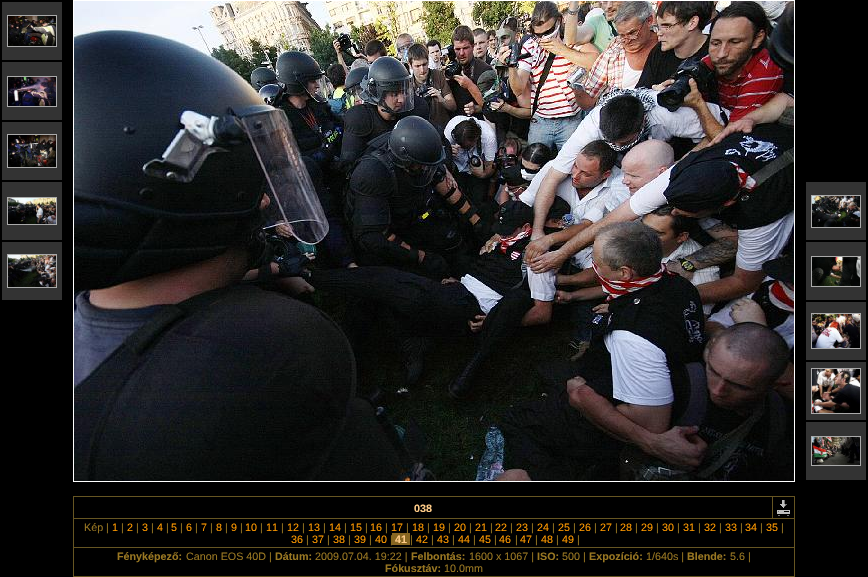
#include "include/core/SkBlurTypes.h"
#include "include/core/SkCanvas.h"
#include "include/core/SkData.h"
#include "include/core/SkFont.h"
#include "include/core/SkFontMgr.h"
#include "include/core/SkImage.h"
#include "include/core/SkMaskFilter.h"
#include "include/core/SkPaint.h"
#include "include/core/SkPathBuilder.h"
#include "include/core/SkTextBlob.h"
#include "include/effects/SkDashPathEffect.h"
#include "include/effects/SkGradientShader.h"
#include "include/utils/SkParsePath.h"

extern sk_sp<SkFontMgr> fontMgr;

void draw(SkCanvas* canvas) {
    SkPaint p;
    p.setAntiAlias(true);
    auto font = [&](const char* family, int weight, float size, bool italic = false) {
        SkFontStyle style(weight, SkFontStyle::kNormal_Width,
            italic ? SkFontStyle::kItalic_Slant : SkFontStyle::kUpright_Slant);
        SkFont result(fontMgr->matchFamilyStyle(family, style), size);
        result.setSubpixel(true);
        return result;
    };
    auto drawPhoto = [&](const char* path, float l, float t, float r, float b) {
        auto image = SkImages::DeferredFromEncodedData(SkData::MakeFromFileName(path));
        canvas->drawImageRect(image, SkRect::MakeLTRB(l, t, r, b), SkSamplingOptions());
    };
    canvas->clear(0xFF000000);
    p.setColor(0xFF333333);
    canvas->drawRect(SkRect::MakeLTRB(2, 2, 62, 60), p);
    p.setStyle(SkPaint::kStroke_Style);
    p.setStrokeWidth(1);
    p.setColor(0xFFAAAAAA);
    canvas->drawRect(SkRect::MakeLTRB(7.5f, 15.5f, 56.5f, 46.5f), p);
    drawPhoto("media/1.png", 8, 16, 56, 46);
    p.setStyle(SkPaint::kFill_Style);
    p.setColor(0xFF333333);
    canvas->drawRect(SkRect::MakeLTRB(2, 62, 62, 120), p);
    p.setStyle(SkPaint::kStroke_Style);
    p.setColor(0xFFAAAAAA);
    canvas->drawRect(SkRect::MakeLTRB(7.5f, 76.5f, 56.5f, 106.5f), p);
    drawPhoto("media/2.png", 8, 77, 56, 106);
    p.setStyle(SkPaint::kFill_Style);
    p.setColor(0xFF333333);
    canvas->drawRect(SkRect::MakeLTRB(2, 122, 62, 180), p);
    p.setStyle(SkPaint::kStroke_Style);
    p.setColor(0xFFAAAAAA);
    canvas->drawRect(SkRect::MakeLTRB(7.5f, 134.5f, 56.5f, 167.5f), p);
    drawPhoto("media/3.png", 8, 135, 56, 167);
    p.setStyle(SkPaint::kFill_Style);
    p.setColor(0xFF333333);
    canvas->drawRect(SkRect::MakeLTRB(2, 182, 62, 240), p);
    p.setStyle(SkPaint::kStroke_Style);
    p.setColor(0xFFAAAAAA);
    canvas->drawRect(SkRect::MakeLTRB(7.5f, 197.5f, 56.5f, 224.5f), p);
    drawPhoto("media/4.png", 8, 198, 56, 224);
    p.setStyle(SkPaint::kFill_Style);
    p.setColor(0xFF333333);
    canvas->drawRect(SkRect::MakeLTRB(2, 242, 62, 300), p);
    p.setStyle(SkPaint::kStroke_Style);
    p.setColor(0xFFAAAAAA);
    canvas->drawRect(SkRect::MakeLTRB(7.5f, 254.5f, 56.5f, 287.5f), p);
    drawPhoto("media/5.png", 8, 255, 56, 287);
    p.setColor(0xFFFFFFFF);
    canvas->drawRect(SkRect::MakeLTRB(73.5f, 0.5f, 794.5f, 481.5f), p);
    drawPhoto("media/6.png", 74, 1, 794, 481);
    p.setStyle(SkPaint::kFill_Style);
    p.setColor(0xFF333333);
    canvas->drawRect(SkRect::MakeLTRB(806, 182, 866, 240), p);
    p.setStyle(SkPaint::kStroke_Style);
    p.setColor(0xFFAAAAAA);
    canvas->drawRect(SkRect::MakeLTRB(811.5f, 195.5f, 860.5f, 227.5f), p);
    drawPhoto("media/7.png", 812, 196, 860, 227);
    p.setStyle(SkPaint::kFill_Style);
    p.setColor(0xFF333333);
    canvas->drawRect(SkRect::MakeLTRB(806, 242, 866, 300), p);
    p.setStyle(SkPaint::kStroke_Style);
    p.setColor(0xFFAAAAAA);
    canvas->drawRect(SkRect::MakeLTRB(811.5f, 256.5f, 860.5f, 286.5f), p);
    drawPhoto("media/8.png", 812, 257, 860, 286);
    p.setStyle(SkPaint::kFill_Style);
    p.setColor(0xFF333333);
    canvas->drawRect(SkRect::MakeLTRB(806, 302, 866, 360), p);
    p.setStyle(SkPaint::kStroke_Style);
    p.setColor(0xFFAAAAAA);
    canvas->drawRect(SkRect::MakeLTRB(811.5f, 313.5f, 860.5f, 348.5f), p);
    drawPhoto("media/9.png", 812, 314, 860, 348);
    p.setStyle(SkPaint::kFill_Style);
    p.setColor(0xFF333333);
    canvas->drawRect(SkRect::MakeLTRB(806, 362, 866, 420), p);
    p.setStyle(SkPaint::kStroke_Style);
    p.setColor(0xFFAAAAAA);
    canvas->drawRect(SkRect::MakeLTRB(811.5f, 368.5f, 860.5f, 413.5f), p);
    drawPhoto("media/10.png", 812, 369, 860, 413);
    p.setStyle(SkPaint::kFill_Style);
    p.setColor(0xFF333333);
    canvas->drawRect(SkRect::MakeLTRB(806, 422, 866, 480), p);
    p.setStyle(SkPaint::kStroke_Style);
    p.setColor(0xFFAAAAAA);
    canvas->drawRect(SkRect::MakeLTRB(811.5f, 436.5f, 860.5f, 465.5f), p);
    drawPhoto("media/11.png", 812, 437, 860, 465);
    p.setStyle(SkPaint::kFill_Style);
    {
        const struct { float l, t, r, b; SkColor color; } items[] = {
            {73, 496, 795, 497, 0xFF665522},
            {794, 496, 795, 577, 0xFF665522},
            {73, 496, 74, 577, 0xFF665522},
        };
        for (auto [l, t, r, b, color] : items) {
            p.setColor(color);
            canvas->drawRect(SkRect::MakeLTRB(l, t, r, b), p);
        }
    }
    auto font1 = font("Liberation Sans", 700, 10.75f);
    p.setColor(0xFFFFCC88);
    canvas->drawString("038", 414, 512, font1, p);
    p.setColor(0xFF665522);
    canvas->drawRect(SkRect::MakeLTRB(73, 518, 795, 519), p);
    canvas->drawRect(SkRect::MakeLTRB(772, 496, 773, 519), p);
    drawPhoto("media/12.png", 777, 500, 790, 516);
    auto font2 = font("Liberation Sans", 400, 10.75f);
    p.setColor(0xFF997722);
    canvas->drawString("Kép |", 84, 531, font2, p);
    p.setColor(0xFFFF9900);
    canvas->drawString("1", 112, 531, font2, p);
    p.setColor(0xFF997722);
    canvas->drawString("|", 121, 531, font2, p);
    p.setColor(0xFFFF9900);
    canvas->drawString("2", 127, 531, font2, p);
    p.setColor(0xFF997722);
    canvas->drawString("|", 136, 531, font2, p);
    p.setColor(0xFFFF9900);
    canvas->drawString("3", 142, 531, font2, p);
    p.setColor(0xFF997722);
    canvas->drawString("|", 151, 531, font2, p);
    p.setColor(0xFFFF9900);
    canvas->drawString("4", 157, 531, font2, p);
    p.setColor(0xFF997722);
    canvas->drawString("|", 166, 531, font2, p);
    p.setColor(0xFFFF9900);
    canvas->drawString("5", 171, 531, font2, p);
    p.setColor(0xFF997722);
    canvas->drawString("|", 180, 531, font2, p);
    p.setColor(0xFFFF9900);
    canvas->drawString("6", 186, 531, font2, p);
    p.setColor(0xFF997722);
    canvas->drawString("|", 195, 531, font2, p);
    p.setColor(0xFFFF9900);
    canvas->drawString("7", 201, 531, font2, p);
    p.setColor(0xFF997722);
    canvas->drawString("|", 210, 531, font2, p);
    p.setColor(0xFFFF9900);
    canvas->drawString("8", 216, 531, font2, p);
    p.setColor(0xFF997722);
    canvas->drawString("|", 225, 531, font2, p);
    p.setColor(0xFFFF9900);
    canvas->drawString("9", 231, 531, font2, p);
    p.setColor(0xFF997722);
    canvas->drawString("|", 240, 531, font2, p);
    p.setColor(0xFFFF9900);
    canvas->drawString("10", 245, 531, font2, p);
    p.setColor(0xFF997722);
    canvas->drawString("|", 260, 531, font2, p);
    p.setColor(0xFFFF9900);
    canvas->drawString("11", 266, 531, font2, p);
    p.setColor(0xFF997722);
    canvas->drawString("|", 281, 531, font2, p);
    p.setColor(0xFFFF9900);
    canvas->drawString("12", 287, 531, font2, p);
    p.setColor(0xFF997722);
    canvas->drawString("|", 302, 531, font2, p);
    p.setColor(0xFFFF9900);
    canvas->drawString("13", 308, 531, font2, p);
    p.setColor(0xFF997722);
    canvas->drawString("|", 323, 531, font2, p);
    p.setColor(0xFFFF9900);
    canvas->drawString("14", 329, 531, font2, p);
    p.setColor(0xFF997722);
    canvas->drawString("|", 344, 531, font2, p);
    p.setColor(0xFFFF9900);
    canvas->drawString("15", 350, 531, font2, p);
    p.setColor(0xFF997722);
    canvas->drawString("|", 365, 531, font2, p);
    p.setColor(0xFFFF9900);
    canvas->drawString("16", 370, 531, font2, p);
    p.setColor(0xFF997722);
    canvas->drawString("|", 385, 531, font2, p);
    p.setColor(0xFFFF9900);
    canvas->drawString("17", 391, 531, font2, p);
    p.setColor(0xFF997722);
    canvas->drawString("|", 406, 531, font2, p);
    p.setColor(0xFFFF9900);
    canvas->drawString("18", 412, 531, font2, p);
    p.setColor(0xFF997722);
    canvas->drawString("|", 427, 531, font2, p);
    p.setColor(0xFFFF9900);
    canvas->drawString("19", 433, 531, font2, p);
    p.setColor(0xFF997722);
    canvas->drawString("|", 448, 531, font2, p);
    p.setColor(0xFFFF9900);
    canvas->drawString("20", 454, 531, font2, p);
    p.setColor(0xFF997722);
    canvas->drawString("|", 469, 531, font2, p);
    p.setColor(0xFFFF9900);
    canvas->drawString("21", 475, 531, font2, p);
    p.setColor(0xFF997722);
    canvas->drawString("|", 490, 531, font2, p);
    p.setColor(0xFFFF9900);
    canvas->drawString("22", 495, 531, font2, p);
    p.setColor(0xFF997722);
    canvas->drawString("|", 510, 531, font2, p);
    p.setColor(0xFFFF9900);
    canvas->drawString("23", 516, 531, font2, p);
    p.setColor(0xFF997722);
    canvas->drawString("|", 531, 531, font2, p);
    p.setColor(0xFFFF9900);
    canvas->drawString("24", 537, 531, font2, p);
    p.setColor(0xFF997722);
    canvas->drawString("|", 552, 531, font2, p);
    p.setColor(0xFFFF9900);
    canvas->drawString("25", 558, 531, font2, p);
    p.setColor(0xFF997722);
    canvas->drawString("|", 573, 531, font2, p);
    p.setColor(0xFFFF9900);
    canvas->drawString("26", 579, 531, font2, p);
    p.setColor(0xFF997722);
    canvas->drawString("|", 594, 531, font2, p);
    p.setColor(0xFFFF9900);
    canvas->drawString("27", 600, 531, font2, p);
    p.setColor(0xFF997722);
    canvas->drawString("|", 615, 531, font2, p);
    p.setColor(0xFFFF9900);
    canvas->drawString("28", 620, 531, font2, p);
    p.setColor(0xFF997722);
    canvas->drawString("|", 635, 531, font2, p);
    p.setColor(0xFFFF9900);
    canvas->drawString("29", 641, 531, font2, p);
    p.setColor(0xFF997722);
    canvas->drawString("|", 656, 531, font2, p);
    p.setColor(0xFFFF9900);
    canvas->drawString("30", 662, 531, font2, p);
    p.setColor(0xFF997722);
    canvas->drawString("|", 677, 531, font2, p);
    p.setColor(0xFFFF9900);
    canvas->drawString("31", 683, 531, font2, p);
    p.setColor(0xFF997722);
    canvas->drawString("|", 698, 531, font2, p);
    p.setColor(0xFFFF9900);
    canvas->drawString("32", 704, 531, font2, p);
    p.setColor(0xFF997722);
    canvas->drawString("|", 719, 531, font2, p);
    p.setColor(0xFFFF9900);
    canvas->drawString("33", 725, 531, font2, p);
    p.setColor(0xFF997722);
    canvas->drawString("|", 740, 531, font2, p);
    p.setColor(0xFFFF9900);
    canvas->drawString("34", 745, 531, font2, p);
    p.setColor(0xFF997722);
    canvas->drawString("|", 760, 531, font2, p);
    p.setColor(0xFFFF9900);
    canvas->drawString("35", 766, 531, font2, p);
    p.setColor(0xFF997722);
    canvas->drawString("|", 781, 531, font2, p);
    p.setColor(0xFFFF9900);
    canvas->drawString("36", 291, 543, font2, p);
    p.setColor(0xFF997722);
    canvas->drawString("|", 306, 543, font2, p);
    p.setColor(0xFFFF9900);
    canvas->drawString("37", 312, 543, font2, p);
    p.setColor(0xFF997722);
    canvas->drawString("|", 327, 543, font2, p);
    p.setColor(0xFFFF9900);
    canvas->drawString("38", 333, 543, font2, p);
    p.setColor(0xFF997722);
    canvas->drawString("|", 348, 543, font2, p);
    p.setColor(0xFFFF9900);
    canvas->drawString("39", 354, 543, font2, p);
    p.setColor(0xFF997722);
    canvas->drawString("|", 369, 543, font2, p);
    p.setColor(0xFFFF9900);
    canvas->drawString("40", 375, 543, font2, p);
    p.setColor(0xFF997722);
    canvas->drawString("|", 390, 543, font2, p);
    p.setColor(0xFF886622);
    canvas->drawRect(SkRect::MakeLTRB(392, 533, 410, 545), p);
    p.setColor(0xFFFFCC88);
    canvas->drawString("41", 395, 543, font1, p);
    p.setColor(0xFF997722);
    canvas->drawString("|", 410, 543, font2, p);
    p.setColor(0xFFFF9900);
    canvas->drawString("42", 416, 543, font2, p);
    p.setColor(0xFF997722);
    canvas->drawString("|", 431, 543, font2, p);
    p.setColor(0xFFFF9900);
    canvas->drawString("43", 437, 543, font2, p);
    p.setColor(0xFF997722);
    canvas->drawString("|", 452, 543, font2, p);
    p.setColor(0xFFFF9900);
    canvas->drawString("44", 458, 543, font2, p);
    p.setColor(0xFF997722);
    canvas->drawString("|", 473, 543, font2, p);
    p.setColor(0xFFFF9900);
    canvas->drawString("45", 479, 543, font2, p);
    p.setColor(0xFF997722);
    canvas->drawString("|", 494, 543, font2, p);
    p.setColor(0xFFFF9900);
    canvas->drawString("46", 499, 543, font2, p);
    p.setColor(0xFF997722);
    canvas->drawString("|", 515, 543, font2, p);
    p.setColor(0xFFFF9900);
    canvas->drawString("47", 520, 543, font2, p);
    p.setColor(0xFF997722);
    canvas->drawString("|", 535, 543, font2, p);
    p.setColor(0xFFFF9900);
    canvas->drawString("48", 541, 543, font2, p);
    p.setColor(0xFF997722);
    canvas->drawString("|", 556, 543, font2, p);
    p.setColor(0xFFFF9900);
    canvas->drawString("49", 562, 543, font2, p);
    p.setColor(0xFF997722);
    canvas->drawString("|", 577, 543, font2, p);
    p.setColor(0xFF665522);
    canvas->drawRect(SkRect::MakeLTRB(73, 547, 795, 548), p);
    p.setColor(0xFF997722);
    canvas->drawString("Fényképező:", 117, 560, font1, p);
    canvas->drawString("Canon EOS 40D |", 186, 560, font2, p);
    canvas->drawString("Dátum:", 275, 560, font1, p);
    canvas->drawString("2009.07.04. 19:22 |", 315, 560, font2, p);
    canvas->drawString("Felbontás:", 411, 560, font1, p);
    canvas->drawString("1600 x 1067 |", 469, 560, font2, p);
    canvas->drawString("ISO:", 537, 560, font1, p);
    canvas->drawString("500 |", 562, 560, font2, p);
    canvas->drawString("Expozíció:", 589, 560, font1, p);
    canvas->drawString("1/640s |", 646, 560, font2, p);
    canvas->drawString("Blende:", 687, 560, font1, p);
    canvas->drawString("5.6 |", 730, 560, font2, p);
    canvas->drawString("Fókusztáv:", 385, 572, font1, p);
    canvas->drawString("10.0mm", 444, 572, font2, p);
    p.setColor(0xFF665522);
    canvas->drawRect(SkRect::MakeLTRB(73, 576, 795, 577), p);
}
